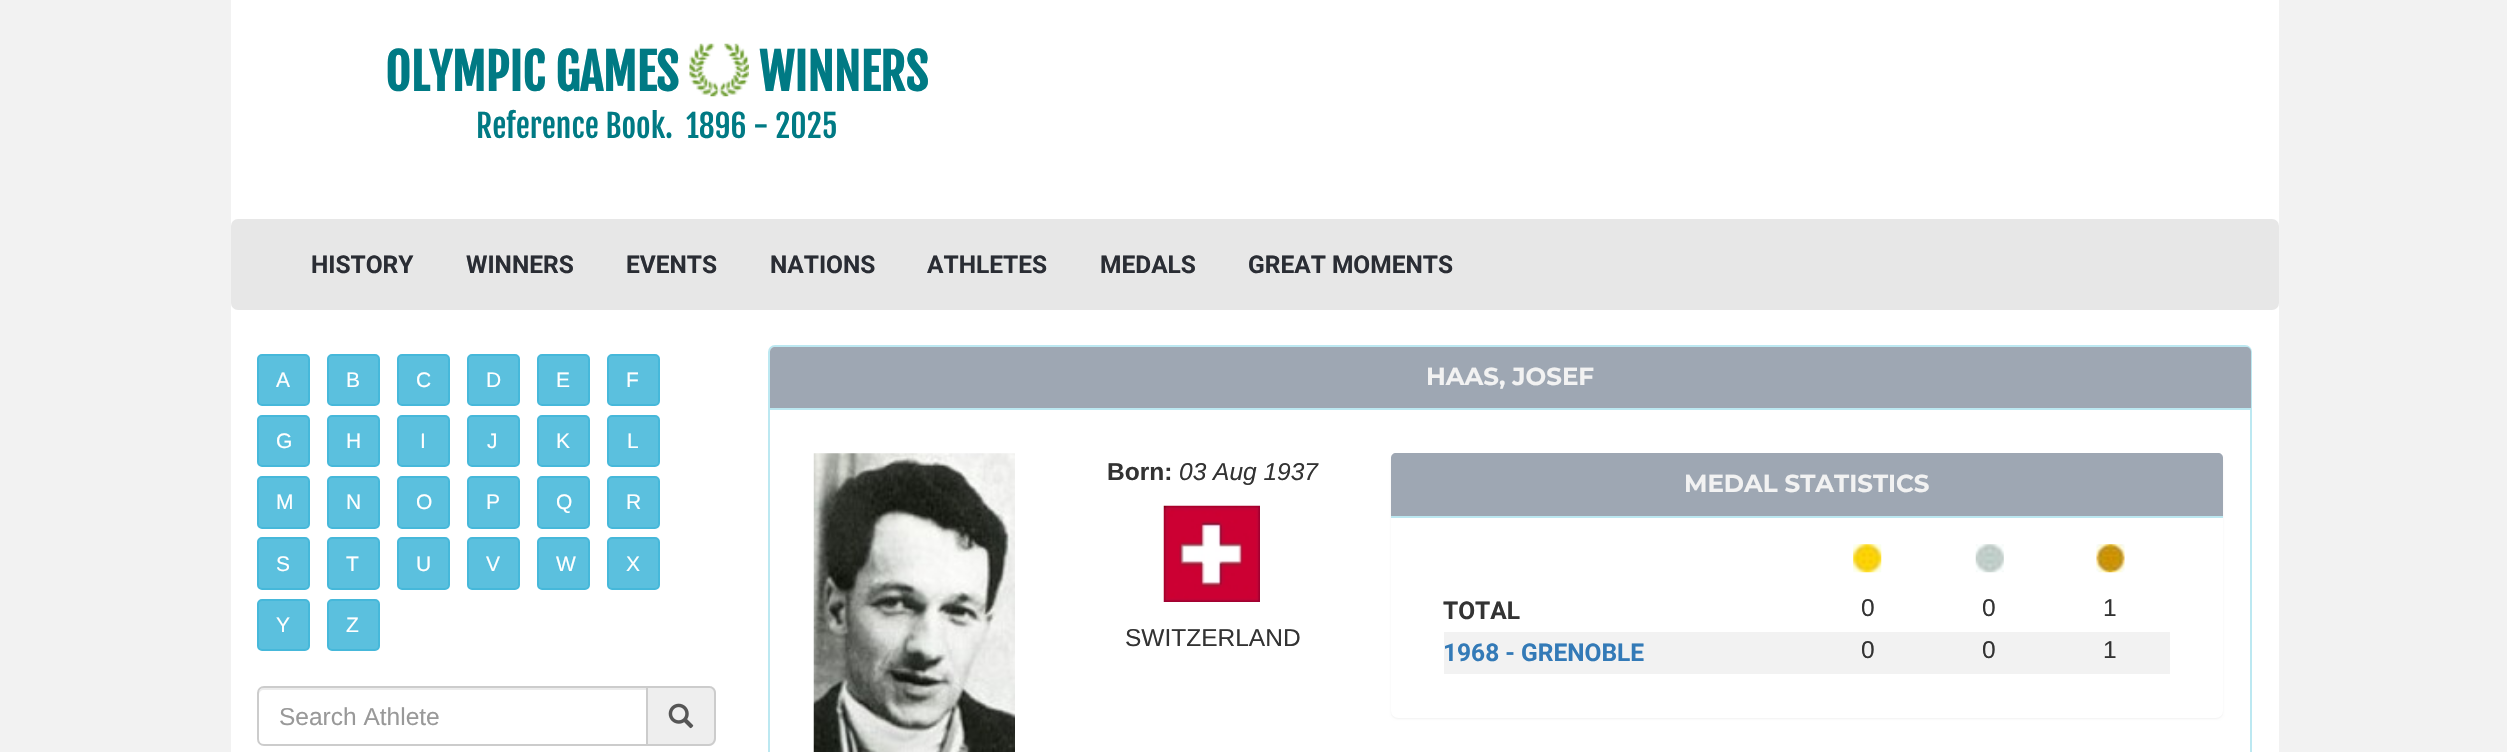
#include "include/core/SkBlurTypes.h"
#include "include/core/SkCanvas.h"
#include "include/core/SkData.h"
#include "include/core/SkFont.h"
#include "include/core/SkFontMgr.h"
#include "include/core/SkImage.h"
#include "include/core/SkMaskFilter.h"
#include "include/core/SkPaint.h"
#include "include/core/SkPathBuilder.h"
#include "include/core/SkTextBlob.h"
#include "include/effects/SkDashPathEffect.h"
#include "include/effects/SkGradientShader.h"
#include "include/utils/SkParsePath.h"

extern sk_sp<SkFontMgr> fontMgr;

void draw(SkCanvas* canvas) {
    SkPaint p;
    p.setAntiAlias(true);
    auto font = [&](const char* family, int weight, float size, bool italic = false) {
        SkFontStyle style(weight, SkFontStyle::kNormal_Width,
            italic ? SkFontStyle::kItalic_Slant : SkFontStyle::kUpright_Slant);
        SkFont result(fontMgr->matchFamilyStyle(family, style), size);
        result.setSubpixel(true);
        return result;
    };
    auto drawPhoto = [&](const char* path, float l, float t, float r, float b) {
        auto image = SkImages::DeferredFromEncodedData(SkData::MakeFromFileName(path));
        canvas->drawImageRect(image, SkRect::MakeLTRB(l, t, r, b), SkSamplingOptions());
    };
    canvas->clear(0xFFF2F2F2);
    p.setColor(0xFFFFFFFF);
    canvas->drawRect(SkRect::MakeLTRB(231, 0, 2279, 752), p);
    auto font1 = font("Fjalla One", 700, 49);
    p.setColor(0xFF007A84);
    canvas->drawString("OLYMPIC GAMES", 385, 91, font1, p);
    drawPhoto("media/1.png", 689, 43, 749, 97);
    canvas->drawString("WINNERS", 759, 91, font1, p);
    auto font2 = font("Fjalla One", 400, 31.5f);
    canvas->drawString("Reference Book.", 476, 138, font2, p);
    canvas->drawString("1896 - 2025", 686, 138, font2, p);
    p.setColor(0xFFE7E7E7);
    canvas->drawRoundRect(SkRect::MakeLTRB(232, 220, 2278, 309), 6, 6, p);
    p.setStyle(SkPaint::kStroke_Style);
    p.setStrokeWidth(2);
    canvas->drawRoundRect(SkRect::MakeLTRB(232, 220, 2278, 309), 6, 6, p);
    auto font3 = font("Roboto", 700, 24.5f);
    p.setStyle(SkPaint::kFill_Style);
    p.setColor(0xFF2A2D34);
    {
        const struct { const char* s; float x, y; } items[] = {
            {"HISTORY", 311, 273},
            {"WINNERS", 466, 273},
            {"EVENTS", 626, 273},
            {"NATIONS", 770, 273},
            {"ATHLETES", 927, 273},
            {"MEDALS", 1100, 273},
            {"GREAT MOMENTS", 1248, 273},
        };
        for (auto [s, x, y] : items) {
            canvas->drawString(s, x, y, font3, p);
        }
    }
    p.setColor(0xFF5BC0DE);
    canvas->drawRoundRect(SkRect::MakeLTRB(258, 355, 309, 405), 4, 4, p);
    p.setStyle(SkPaint::kStroke_Style);
    p.setColor(0xFF46B8DA);
    canvas->drawRoundRect(SkRect::MakeLTRB(258, 355, 309, 405), 4, 4, p);
    auto font4 = font("Liberation Sans", 400, 21);
    p.setStyle(SkPaint::kFill_Style);
    p.setColor(0xFFFFFFFF);
    canvas->drawString("A", 276, 387, font4, p);
    p.setColor(0xFF5BC0DE);
    canvas->drawRoundRect(SkRect::MakeLTRB(328, 355, 379, 405), 4, 4, p);
    p.setStyle(SkPaint::kStroke_Style);
    p.setColor(0xFF46B8DA);
    canvas->drawRoundRect(SkRect::MakeLTRB(328, 355, 379, 405), 4, 4, p);
    p.setStyle(SkPaint::kFill_Style);
    p.setColor(0xFFFFFFFF);
    canvas->drawString("B", 346, 387, font4, p);
    p.setColor(0xFF5BC0DE);
    canvas->drawRoundRect(SkRect::MakeLTRB(398, 355, 449, 405), 4, 4, p);
    p.setStyle(SkPaint::kStroke_Style);
    p.setColor(0xFF46B8DA);
    canvas->drawRoundRect(SkRect::MakeLTRB(398, 355, 449, 405), 4, 4, p);
    p.setStyle(SkPaint::kFill_Style);
    p.setColor(0xFFFFFFFF);
    canvas->drawString("C", 416, 387, font4, p);
    p.setColor(0xFF5BC0DE);
    canvas->drawRoundRect(SkRect::MakeLTRB(468, 355, 519, 405), 4, 4, p);
    p.setStyle(SkPaint::kStroke_Style);
    p.setColor(0xFF46B8DA);
    canvas->drawRoundRect(SkRect::MakeLTRB(468, 355, 519, 405), 4, 4, p);
    p.setStyle(SkPaint::kFill_Style);
    p.setColor(0xFFFFFFFF);
    canvas->drawString("D", 486, 387, font4, p);
    p.setColor(0xFF5BC0DE);
    canvas->drawRoundRect(SkRect::MakeLTRB(538, 355, 589, 405), 4, 4, p);
    p.setStyle(SkPaint::kStroke_Style);
    p.setColor(0xFF46B8DA);
    canvas->drawRoundRect(SkRect::MakeLTRB(538, 355, 589, 405), 4, 4, p);
    p.setStyle(SkPaint::kFill_Style);
    p.setColor(0xFFFFFFFF);
    canvas->drawString("E", 556, 387, font4, p);
    p.setColor(0xFF5BC0DE);
    canvas->drawRoundRect(SkRect::MakeLTRB(608, 355, 659, 405), 4, 4, p);
    p.setStyle(SkPaint::kStroke_Style);
    p.setColor(0xFF46B8DA);
    canvas->drawRoundRect(SkRect::MakeLTRB(608, 355, 659, 405), 4, 4, p);
    p.setStyle(SkPaint::kFill_Style);
    p.setColor(0xFFFFFFFF);
    canvas->drawString("F", 626, 387, font4, p);
    p.setColor(0xFF5BC0DE);
    canvas->drawRoundRect(SkRect::MakeLTRB(258, 416, 309, 466), 4, 4, p);
    p.setStyle(SkPaint::kStroke_Style);
    p.setColor(0xFF46B8DA);
    canvas->drawRoundRect(SkRect::MakeLTRB(258, 416, 309, 466), 4, 4, p);
    p.setStyle(SkPaint::kFill_Style);
    p.setColor(0xFFFFFFFF);
    canvas->drawString("G", 276, 448, font4, p);
    p.setColor(0xFF5BC0DE);
    canvas->drawRoundRect(SkRect::MakeLTRB(328, 416, 379, 466), 4, 4, p);
    p.setStyle(SkPaint::kStroke_Style);
    p.setColor(0xFF46B8DA);
    canvas->drawRoundRect(SkRect::MakeLTRB(328, 416, 379, 466), 4, 4, p);
    p.setStyle(SkPaint::kFill_Style);
    p.setColor(0xFFFFFFFF);
    canvas->drawString("H", 346, 448, font4, p);
    p.setColor(0xFF5BC0DE);
    canvas->drawRoundRect(SkRect::MakeLTRB(398, 416, 449, 466), 4, 4, p);
    p.setStyle(SkPaint::kStroke_Style);
    p.setColor(0xFF46B8DA);
    canvas->drawRoundRect(SkRect::MakeLTRB(398, 416, 449, 466), 4, 4, p);
    p.setStyle(SkPaint::kFill_Style);
    p.setColor(0xFFFFFFFF);
    canvas->drawString("I", 420, 448, font4, p);
    p.setColor(0xFF5BC0DE);
    canvas->drawRoundRect(SkRect::MakeLTRB(468, 416, 519, 466), 4, 4, p);
    p.setStyle(SkPaint::kStroke_Style);
    p.setColor(0xFF46B8DA);
    canvas->drawRoundRect(SkRect::MakeLTRB(468, 416, 519, 466), 4, 4, p);
    p.setStyle(SkPaint::kFill_Style);
    p.setColor(0xFFFFFFFF);
    canvas->drawString("J", 487, 448, font4, p);
    p.setColor(0xFF5BC0DE);
    canvas->drawRoundRect(SkRect::MakeLTRB(538, 416, 589, 466), 4, 4, p);
    p.setStyle(SkPaint::kStroke_Style);
    p.setColor(0xFF46B8DA);
    canvas->drawRoundRect(SkRect::MakeLTRB(538, 416, 589, 466), 4, 4, p);
    p.setStyle(SkPaint::kFill_Style);
    p.setColor(0xFFFFFFFF);
    canvas->drawString("K", 556, 448, font4, p);
    p.setColor(0xFF5BC0DE);
    canvas->drawRoundRect(SkRect::MakeLTRB(608, 416, 659, 466), 4, 4, p);
    p.setStyle(SkPaint::kStroke_Style);
    p.setColor(0xFF46B8DA);
    canvas->drawRoundRect(SkRect::MakeLTRB(608, 416, 659, 466), 4, 4, p);
    p.setStyle(SkPaint::kFill_Style);
    p.setColor(0xFFFFFFFF);
    canvas->drawString("L", 627, 448, font4, p);
    p.setColor(0xFF5BC0DE);
    canvas->drawRoundRect(SkRect::MakeLTRB(258, 477, 309, 528), 4, 4, p);
    p.setStyle(SkPaint::kStroke_Style);
    p.setColor(0xFF46B8DA);
    canvas->drawRoundRect(SkRect::MakeLTRB(258, 477, 309, 528), 4, 4, p);
    p.setStyle(SkPaint::kFill_Style);
    p.setColor(0xFFFFFFFF);
    canvas->drawString("M", 276, 509, font4, p);
    p.setColor(0xFF5BC0DE);
    canvas->drawRoundRect(SkRect::MakeLTRB(328, 477, 379, 528), 4, 4, p);
    p.setStyle(SkPaint::kStroke_Style);
    p.setColor(0xFF46B8DA);
    canvas->drawRoundRect(SkRect::MakeLTRB(328, 477, 379, 528), 4, 4, p);
    p.setStyle(SkPaint::kFill_Style);
    p.setColor(0xFFFFFFFF);
    canvas->drawString("N", 346, 509, font4, p);
    p.setColor(0xFF5BC0DE);
    canvas->drawRoundRect(SkRect::MakeLTRB(398, 477, 449, 528), 4, 4, p);
    p.setStyle(SkPaint::kStroke_Style);
    p.setColor(0xFF46B8DA);
    canvas->drawRoundRect(SkRect::MakeLTRB(398, 477, 449, 528), 4, 4, p);
    p.setStyle(SkPaint::kFill_Style);
    p.setColor(0xFFFFFFFF);
    canvas->drawString("O", 416, 509, font4, p);
    p.setColor(0xFF5BC0DE);
    canvas->drawRoundRect(SkRect::MakeLTRB(468, 477, 519, 528), 4, 4, p);
    p.setStyle(SkPaint::kStroke_Style);
    p.setColor(0xFF46B8DA);
    canvas->drawRoundRect(SkRect::MakeLTRB(468, 477, 519, 528), 4, 4, p);
    p.setStyle(SkPaint::kFill_Style);
    p.setColor(0xFFFFFFFF);
    canvas->drawString("P", 486, 509, font4, p);
    p.setColor(0xFF5BC0DE);
    canvas->drawRoundRect(SkRect::MakeLTRB(538, 477, 589, 528), 4, 4, p);
    p.setStyle(SkPaint::kStroke_Style);
    p.setColor(0xFF46B8DA);
    canvas->drawRoundRect(SkRect::MakeLTRB(538, 477, 589, 528), 4, 4, p);
    p.setStyle(SkPaint::kFill_Style);
    p.setColor(0xFFFFFFFF);
    canvas->drawString("Q", 556, 509, font4, p);
    p.setColor(0xFF5BC0DE);
    canvas->drawRoundRect(SkRect::MakeLTRB(608, 477, 659, 528), 4, 4, p);
    p.setStyle(SkPaint::kStroke_Style);
    p.setColor(0xFF46B8DA);
    canvas->drawRoundRect(SkRect::MakeLTRB(608, 477, 659, 528), 4, 4, p);
    p.setStyle(SkPaint::kFill_Style);
    p.setColor(0xFFFFFFFF);
    canvas->drawString("R", 626, 509, font4, p);
    p.setColor(0xFF5BC0DE);
    canvas->drawRoundRect(SkRect::MakeLTRB(258, 538, 309, 589), 4, 4, p);
    p.setStyle(SkPaint::kStroke_Style);
    p.setColor(0xFF46B8DA);
    canvas->drawRoundRect(SkRect::MakeLTRB(258, 538, 309, 589), 4, 4, p);
    p.setStyle(SkPaint::kFill_Style);
    p.setColor(0xFFFFFFFF);
    canvas->drawString("S", 276, 571, font4, p);
    p.setColor(0xFF5BC0DE);
    canvas->drawRoundRect(SkRect::MakeLTRB(328, 538, 379, 589), 4, 4, p);
    p.setStyle(SkPaint::kStroke_Style);
    p.setColor(0xFF46B8DA);
    canvas->drawRoundRect(SkRect::MakeLTRB(328, 538, 379, 589), 4, 4, p);
    p.setStyle(SkPaint::kFill_Style);
    p.setColor(0xFFFFFFFF);
    canvas->drawString("T", 346, 571, font4, p);
    p.setColor(0xFF5BC0DE);
    canvas->drawRoundRect(SkRect::MakeLTRB(398, 538, 449, 589), 4, 4, p);
    p.setStyle(SkPaint::kStroke_Style);
    p.setColor(0xFF46B8DA);
    canvas->drawRoundRect(SkRect::MakeLTRB(398, 538, 449, 589), 4, 4, p);
    p.setStyle(SkPaint::kFill_Style);
    p.setColor(0xFFFFFFFF);
    canvas->drawString("U", 416, 571, font4, p);
    p.setColor(0xFF5BC0DE);
    canvas->drawRoundRect(SkRect::MakeLTRB(468, 538, 519, 589), 4, 4, p);
    p.setStyle(SkPaint::kStroke_Style);
    p.setColor(0xFF46B8DA);
    canvas->drawRoundRect(SkRect::MakeLTRB(468, 538, 519, 589), 4, 4, p);
    p.setStyle(SkPaint::kFill_Style);
    p.setColor(0xFFFFFFFF);
    canvas->drawString("V", 486, 571, font4, p);
    p.setColor(0xFF5BC0DE);
    canvas->drawRoundRect(SkRect::MakeLTRB(538, 538, 589, 589), 4, 4, p);
    p.setStyle(SkPaint::kStroke_Style);
    p.setColor(0xFF46B8DA);
    canvas->drawRoundRect(SkRect::MakeLTRB(538, 538, 589, 589), 4, 4, p);
    p.setStyle(SkPaint::kFill_Style);
    p.setColor(0xFFFFFFFF);
    canvas->drawString("W", 556, 571, font4, p);
    p.setColor(0xFF5BC0DE);
    canvas->drawRoundRect(SkRect::MakeLTRB(608, 538, 659, 589), 4, 4, p);
    p.setStyle(SkPaint::kStroke_Style);
    p.setColor(0xFF46B8DA);
    canvas->drawRoundRect(SkRect::MakeLTRB(608, 538, 659, 589), 4, 4, p);
    p.setStyle(SkPaint::kFill_Style);
    p.setColor(0xFFFFFFFF);
    canvas->drawString("X", 626, 571, font4, p);
    p.setColor(0xFF5BC0DE);
    canvas->drawRoundRect(SkRect::MakeLTRB(258, 600, 309, 650), 4, 4, p);
    p.setStyle(SkPaint::kStroke_Style);
    p.setColor(0xFF46B8DA);
    canvas->drawRoundRect(SkRect::MakeLTRB(258, 600, 309, 650), 4, 4, p);
    p.setStyle(SkPaint::kFill_Style);
    p.setColor(0xFFFFFFFF);
    canvas->drawString("Y", 276, 632, font4, p);
    p.setColor(0xFF5BC0DE);
    canvas->drawRoundRect(SkRect::MakeLTRB(328, 600, 379, 650), 4, 4, p);
    p.setStyle(SkPaint::kStroke_Style);
    p.setColor(0xFF46B8DA);
    canvas->drawRoundRect(SkRect::MakeLTRB(328, 600, 379, 650), 4, 4, p);
    p.setStyle(SkPaint::kFill_Style);
    p.setColor(0xFFFFFFFF);
    canvas->drawString("Z", 346, 632, font4, p);
    p.setColor(0xFFECECEC);
    canvas->drawPath(SkPathBuilder().moveTo(264, 690).lineTo(646, 690).lineTo(646, 688).lineTo(264, 688).cubicTo(261, 688, 259, 690, 259, 693).lineTo(259, 695).cubicTo(259, 692, 261, 690, 264, 690).close().detach(), p);
    p.setStyle(SkPaint::kStroke_Style);
    p.setColor(0xFFCCCCCC);
    canvas->drawPath(SkPathBuilder().moveTo(264, 687).lineTo(647, 687).lineTo(647, 745).lineTo(264, 745).cubicTo(260.5f, 745, 258, 742.5f, 258, 739).lineTo(258, 693).cubicTo(258, 689.5f, 260.5f, 687, 264, 687).close().detach(), p);
    auto font5 = font("Liberation Sans", 400, 24.5f);
    p.setStyle(SkPaint::kFill_Style);
    p.setColor(0xFF999999);
    canvas->drawString("Search Athlete", 279, 725, font5, p);
    p.setColor(0xFFEEEEEE);
    canvas->drawPath(SkPathBuilder().moveTo(648, 686).lineTo(709, 686).cubicTo(713, 686, 716, 689, 716, 693).lineTo(716, 739).cubicTo(716, 743, 713, 746, 709, 746).lineTo(648, 746).close().detach(), p);
    p.setColor(0xFFCCCCCC);
    canvas->drawPath(SkPathBuilder(SkPathFillType::kEvenOdd).moveTo(648, 686).lineTo(709, 686).cubicTo(713, 686, 716, 689, 716, 693).lineTo(716, 738).cubicTo(716, 742, 713, 746, 709, 746).lineTo(648, 746).close().moveTo(648, 688).lineTo(709, 688).cubicTo(712, 688, 714, 690, 714, 693).lineTo(714, 738).cubicTo(714, 741, 712, 744, 709, 744).lineTo(648, 744).close().detach(), p);
    drawPhoto("media/2.png", 668, 703, 694, 729);
    p.setStyle(SkPaint::kStroke_Style);
    p.setColor(0xFFBCE8F1);
    canvas->drawRoundRect(SkRect::MakeLTRB(769, 346, 2251, 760), 6, 6, p);
    p.setStyle(SkPaint::kFill_Style);
    p.setColor(0xFF9EA7B3);
    canvas->drawPath(SkPathBuilder().moveTo(775, 347).lineTo(2246, 347).cubicTo(2249, 347, 2251, 349, 2251, 352).lineTo(2251, 410).lineTo(770, 410).lineTo(770, 352).cubicTo(770, 349, 772, 347, 775, 347).close().detach(), p);
    p.setColor(0xFFBCE8F1);
    canvas->drawRect(SkRect::MakeLTRB(770, 408, 2251, 410), p);
    auto font6 = font("Montserrat", 700, 24.5f);
    p.setColor(0xFFF2F2F2);
    canvas->drawString("HAAS, JOSEF", 1426, 385, font6, p);
    drawPhoto("media/3.png", 813, 453, 1015, 752);
    auto font7 = font("Liberation Sans", 700, 24.5f);
    p.setColor(0xFF333333);
    canvas->drawString("Born:", 1107, 480, font7, p);
    auto font8 = font("Liberation Sans", 400, 24.5f, true);
    canvas->drawString("03 Aug 1937", 1179, 480, font8, p);
    drawPhoto("media/4.png", 1163, 505, 1260, 602);
    canvas->drawString("SWITZERLAND", 1125, 646, font5, p);
    p.setColor(0x0D000000);
    p.setMaskFilter(SkMaskFilter::MakeBlur(kNormal_SkBlurStyle, 1));
    canvas->drawRoundRect(SkRect::MakeLTRB(1391, 455, 2223, 719), 7, 7, p);
    p.setMaskFilter(nullptr);
    p.setColor(0xFFFFFFFF);
    canvas->drawRoundRect(SkRect::MakeLTRB(1391, 453, 2223, 718), 7, 7, p);
    p.setColor(0xFF9EA7B3);
    canvas->drawPath(SkPathBuilder().moveTo(1396, 453).lineTo(2218, 453).cubicTo(2221, 453, 2223, 455, 2223, 458).lineTo(2223, 518).lineTo(1391, 518).lineTo(1391, 458).cubicTo(1391, 455, 1393, 453, 1396, 453).close().detach(), p);
    p.setColor(0xFFBCE8F1);
    canvas->drawRect(SkRect::MakeLTRB(1391, 516, 2223, 518), p);
    p.setColor(0xFFF2F2F2);
    canvas->drawString("MEDAL STATISTICS", 1684, 492, font6, p);
    drawPhoto("media/5.png", 1853, 544, 1882, 573);
    drawPhoto("media/6.png", 1975, 544, 2004, 573);
    drawPhoto("media/7.png", 2096, 544, 2125, 573);
    p.setColor(0xFF333333);
    canvas->drawString("TOTAL", 1443, 619, font3, p);
    {
        const struct { const char* s; float x, y; } items[] = {
            {"0", 1861, 616},
            {"0", 1982, 616},
            {"1", 2103, 616},
        };
        for (auto [s, x, y] : items) {
            canvas->drawString(s, x, y, font5, p);
        }
    }
    p.setColor(0xFFF2F2F2);
    canvas->drawRect(SkRect::MakeLTRB(1444, 632, 2170, 674), p);
    p.setColor(0xFF337AB7);
    canvas->drawString("1968 - GRENOBLE", 1443, 661, font3, p);
    p.setColor(0xFF333333);
    {
        const struct { const char* s; float x, y; } items[] = {
            {"0", 1861, 658},
            {"0", 1982, 658},
            {"1", 2103, 658},
        };
        for (auto [s, x, y] : items) {
            canvas->drawString(s, x, y, font5, p);
        }
    }
}
